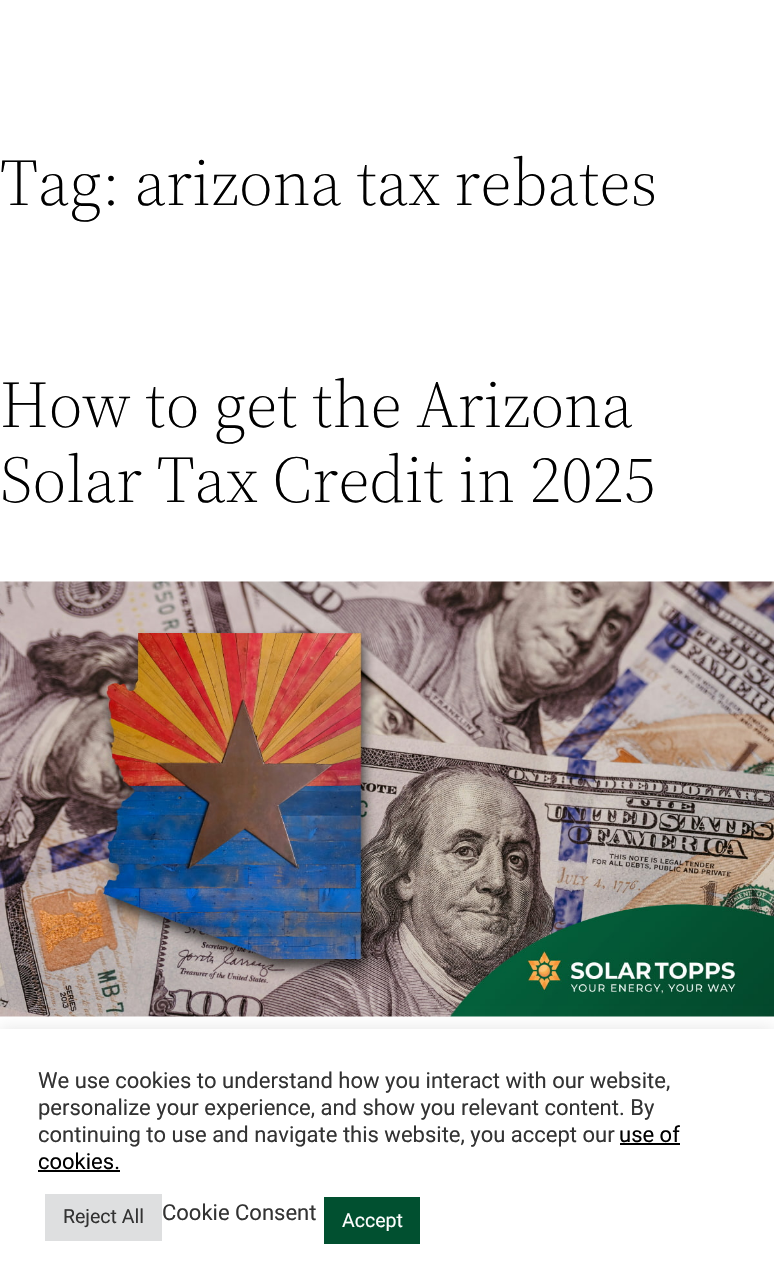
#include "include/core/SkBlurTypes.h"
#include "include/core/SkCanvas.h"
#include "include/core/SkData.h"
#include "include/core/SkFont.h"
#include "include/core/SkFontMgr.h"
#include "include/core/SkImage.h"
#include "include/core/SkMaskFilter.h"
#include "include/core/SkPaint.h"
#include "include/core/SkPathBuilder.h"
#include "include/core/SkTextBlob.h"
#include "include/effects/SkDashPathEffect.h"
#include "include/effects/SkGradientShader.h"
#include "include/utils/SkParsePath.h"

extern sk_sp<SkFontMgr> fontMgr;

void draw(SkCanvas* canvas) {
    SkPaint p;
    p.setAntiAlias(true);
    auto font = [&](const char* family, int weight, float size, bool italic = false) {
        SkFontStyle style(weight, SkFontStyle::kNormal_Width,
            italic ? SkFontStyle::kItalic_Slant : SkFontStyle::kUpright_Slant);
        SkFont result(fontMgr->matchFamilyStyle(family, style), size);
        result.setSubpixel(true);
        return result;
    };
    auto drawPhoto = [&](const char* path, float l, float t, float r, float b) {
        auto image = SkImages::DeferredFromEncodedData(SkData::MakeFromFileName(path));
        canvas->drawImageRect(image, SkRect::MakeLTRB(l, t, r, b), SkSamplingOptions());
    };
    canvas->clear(0xFFFFFFFF);
    auto font1 = font("Source Serif 4", 300, 66);
    p.setColor(0xFF000000);
    {
        const struct { const char* s; float x, y; } items[] = {
            {"Tag: arizona tax rebates", 0, 205},
            {"How to get the Arizona", 0, 427},
            {"Solar Tax Credit in 2025", 0, 502},
        };
        for (auto [s, x, y] : items) {
            canvas->drawString(s, x, y, font1, p);
        }
    }
    drawPhoto("media/1.png", 0, 581, 774, 1017);
    p.setColor(0x4DACABAB);
    p.setMaskFilter(SkMaskFilter::MakeBlur(kNormal_SkBlurStyle, 7.5f));
    canvas->drawRect(SkRect::MakeLTRB(0, 1028, 774, 1287), p);
    p.setMaskFilter(nullptr);
    p.setColor(0xFFFFFFFF);
    canvas->drawRect(SkRect::MakeLTRB(0, 1029, 774, 1288), p);
    auto font2 = font("Roboto", 400, 22);
    p.setColor(0xFF333333);
    {
        const struct { const char* s; float x, y; } items[] = {
            {"We use cookies to understand how you interact with our website,", 38, 1088},
            {"personalize your experience, and show you relevant content. By", 38, 1115},
            {"continuing to use and navigate this website, you accept our", 38, 1142},
        };
        for (auto [s, x, y] : items) {
            canvas->drawString(s, x, y, font2, p);
        }
    }
    p.setColor(0xFF000000);
    canvas->drawString("use of", 619, 1142, font2, p);
    canvas->drawRect(SkRect::MakeLTRB(620, 1143, 680, 1145), p);
    canvas->drawString("cookies.", 38, 1169, font2, p);
    canvas->drawRect(SkRect::MakeLTRB(38, 1170, 120, 1172), p);
    p.setColor(0xFFDEDFE0);
    canvas->drawRect(SkRect::MakeLTRB(45, 1194, 162, 1241), p);
    auto font3 = font("Roboto", 400, 19.5f);
    p.setColor(0xFF333333);
    canvas->drawString("Reject All", 63, 1223, font3, p);
    canvas->drawString("Cookie Consent", 162, 1220, font2, p);
    p.setColor(0xFF015030);
    canvas->drawRect(SkRect::MakeLTRB(324, 1197, 420, 1244), p);
    p.setColor(0xFFFFFFFF);
    canvas->drawString("Accept", 342, 1227, font3, p);
}
